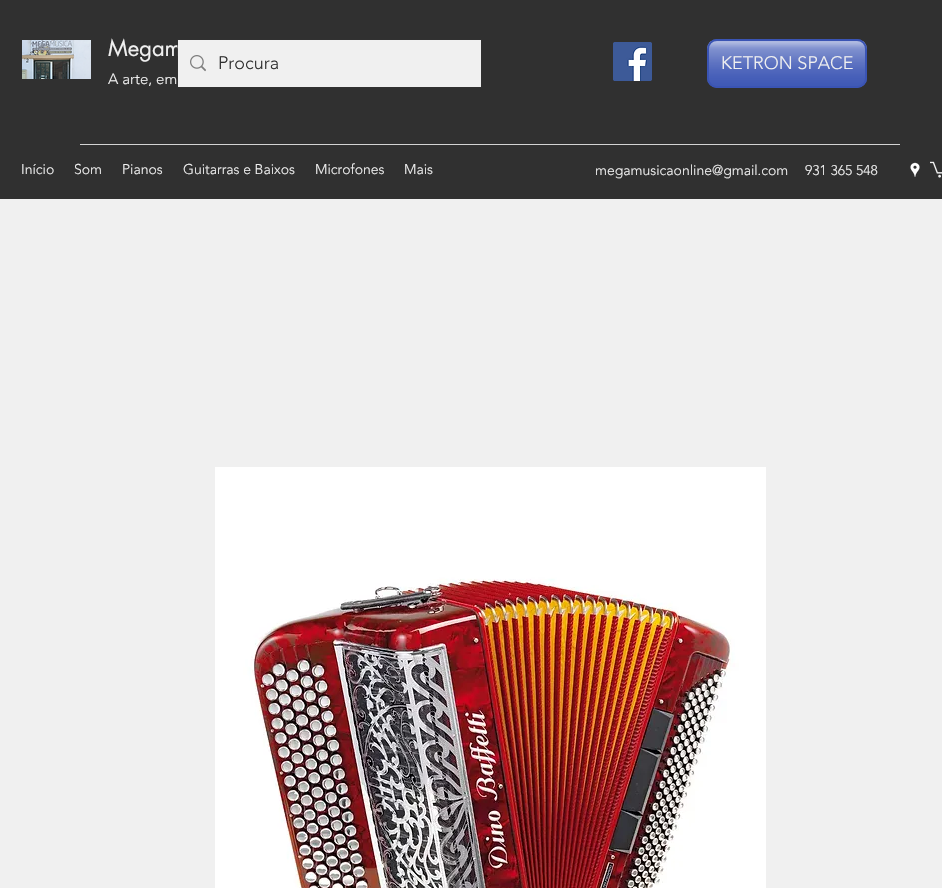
#include "include/core/SkBlurTypes.h"
#include "include/core/SkCanvas.h"
#include "include/core/SkData.h"
#include "include/core/SkFont.h"
#include "include/core/SkFontMgr.h"
#include "include/core/SkImage.h"
#include "include/core/SkMaskFilter.h"
#include "include/core/SkPaint.h"
#include "include/core/SkPathBuilder.h"
#include "include/core/SkTextBlob.h"
#include "include/effects/SkDashPathEffect.h"
#include "include/effects/SkGradientShader.h"
#include "include/utils/SkParsePath.h"

extern sk_sp<SkFontMgr> fontMgr;

void draw(SkCanvas* canvas) {
    SkPaint p;
    p.setAntiAlias(true);
    auto font = [&](const char* family, int weight, float size, bool italic = false) {
        SkFontStyle style(weight, SkFontStyle::kNormal_Width,
            italic ? SkFontStyle::kItalic_Slant : SkFontStyle::kUpright_Slant);
        SkFont result(fontMgr->matchFamilyStyle(family, style), size);
        result.setSubpixel(true);
        return result;
    };
    auto drawPhoto = [&](const char* path, float l, float t, float r, float b) {
        auto image = SkImages::DeferredFromEncodedData(SkData::MakeFromFileName(path));
        canvas->drawImageRect(image, SkRect::MakeLTRB(l, t, r, b), SkSamplingOptions());
    };
    canvas->clear(0xFFF0F0F0);
    p.setColor(0xFF303030);
    canvas->drawRect(SkRect::MakeLTRB(0, 0, 942, 199), p);
    drawPhoto("media/1.png", 22, 40, 91, 79);
    auto font1 = font("futura", 400, 22);
    p.setColor(0xFFF0F0F0);
    canvas->drawString("Megam", 108, 56, font1, p);
    auto font2 = font("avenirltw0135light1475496", 300, 15);
    canvas->drawString("A arte, em", 108, 84, font2, p);
    p.setStyle(SkPaint::kStroke_Style);
    p.setStrokeWidth(1);
    p.setColor(0x99303030);
    canvas->drawRect(SkRect::MakeLTRB(177.5f, 39.5f, 481.5f, 87.5f), p);
    p.setStyle(SkPaint::kFill_Style);
    p.setColor(0xFFF0F0F0);
    canvas->drawRect(SkRect::MakeLTRB(178, 40, 481, 87), p);
    drawPhoto("media/2.png", 190, 55, 206, 72);
    auto font3 = font("avenirltw0135light1475496", 300, 18);
    p.setColor(0xFF303030);
    canvas->drawString("Procura", 218, 69, font3, p);
    drawPhoto("media/3.png", 613, 42, 652, 81);
    p.setColor(0xFF3A54B4);
    canvas->drawRoundRect(SkRect::MakeLTRB(707, 39, 867, 88), 10, 10, p);
    drawPhoto("media/4.png", 707, 41, 867, 86);
    p.setStyle(SkPaint::kStroke_Style);
    p.setStrokeWidth(2);
    canvas->drawRoundRect(SkRect::MakeLTRB(708, 40, 866, 87), 9, 9, p);
    p.setStyle(SkPaint::kFill_Style);
    p.setColor(0xFFF0F0F0);
    canvas->drawString("KETRON SPACE", 721, 69, font3, p);
    p.setColor(0xFFD3D3D3);
    canvas->drawRect(SkRect::MakeLTRB(80, 144, 900, 145), p);
    auto font4 = font("avenirltw0135light1475496", 300, 14);
    p.setColor(0xFFF0F0F0);
    {
        const struct { const char* s; float x, y; } items[] = {
            {"Início", 21, 174},
            {"Som", 74, 174},
            {"Pianos", 122, 174},
            {"Guitarras e Baixos", 183, 174},
            {"Microfones", 315, 174},
            {"Mais", 404, 174},
            {"megamusicaonline@gmail.com", 595, 175},
            {"931 365 548", 805, 175},
        };
        for (auto [s, x, y] : items) {
            canvas->drawString(s, x, y, font4, p);
        }
    }
    drawPhoto("media/5.png", 910, 162, 920, 177);
    drawPhoto("media/6.png", 930, 161, 942, 178);
    drawPhoto("media/7.png", 215, 467, 766, 888);
}
